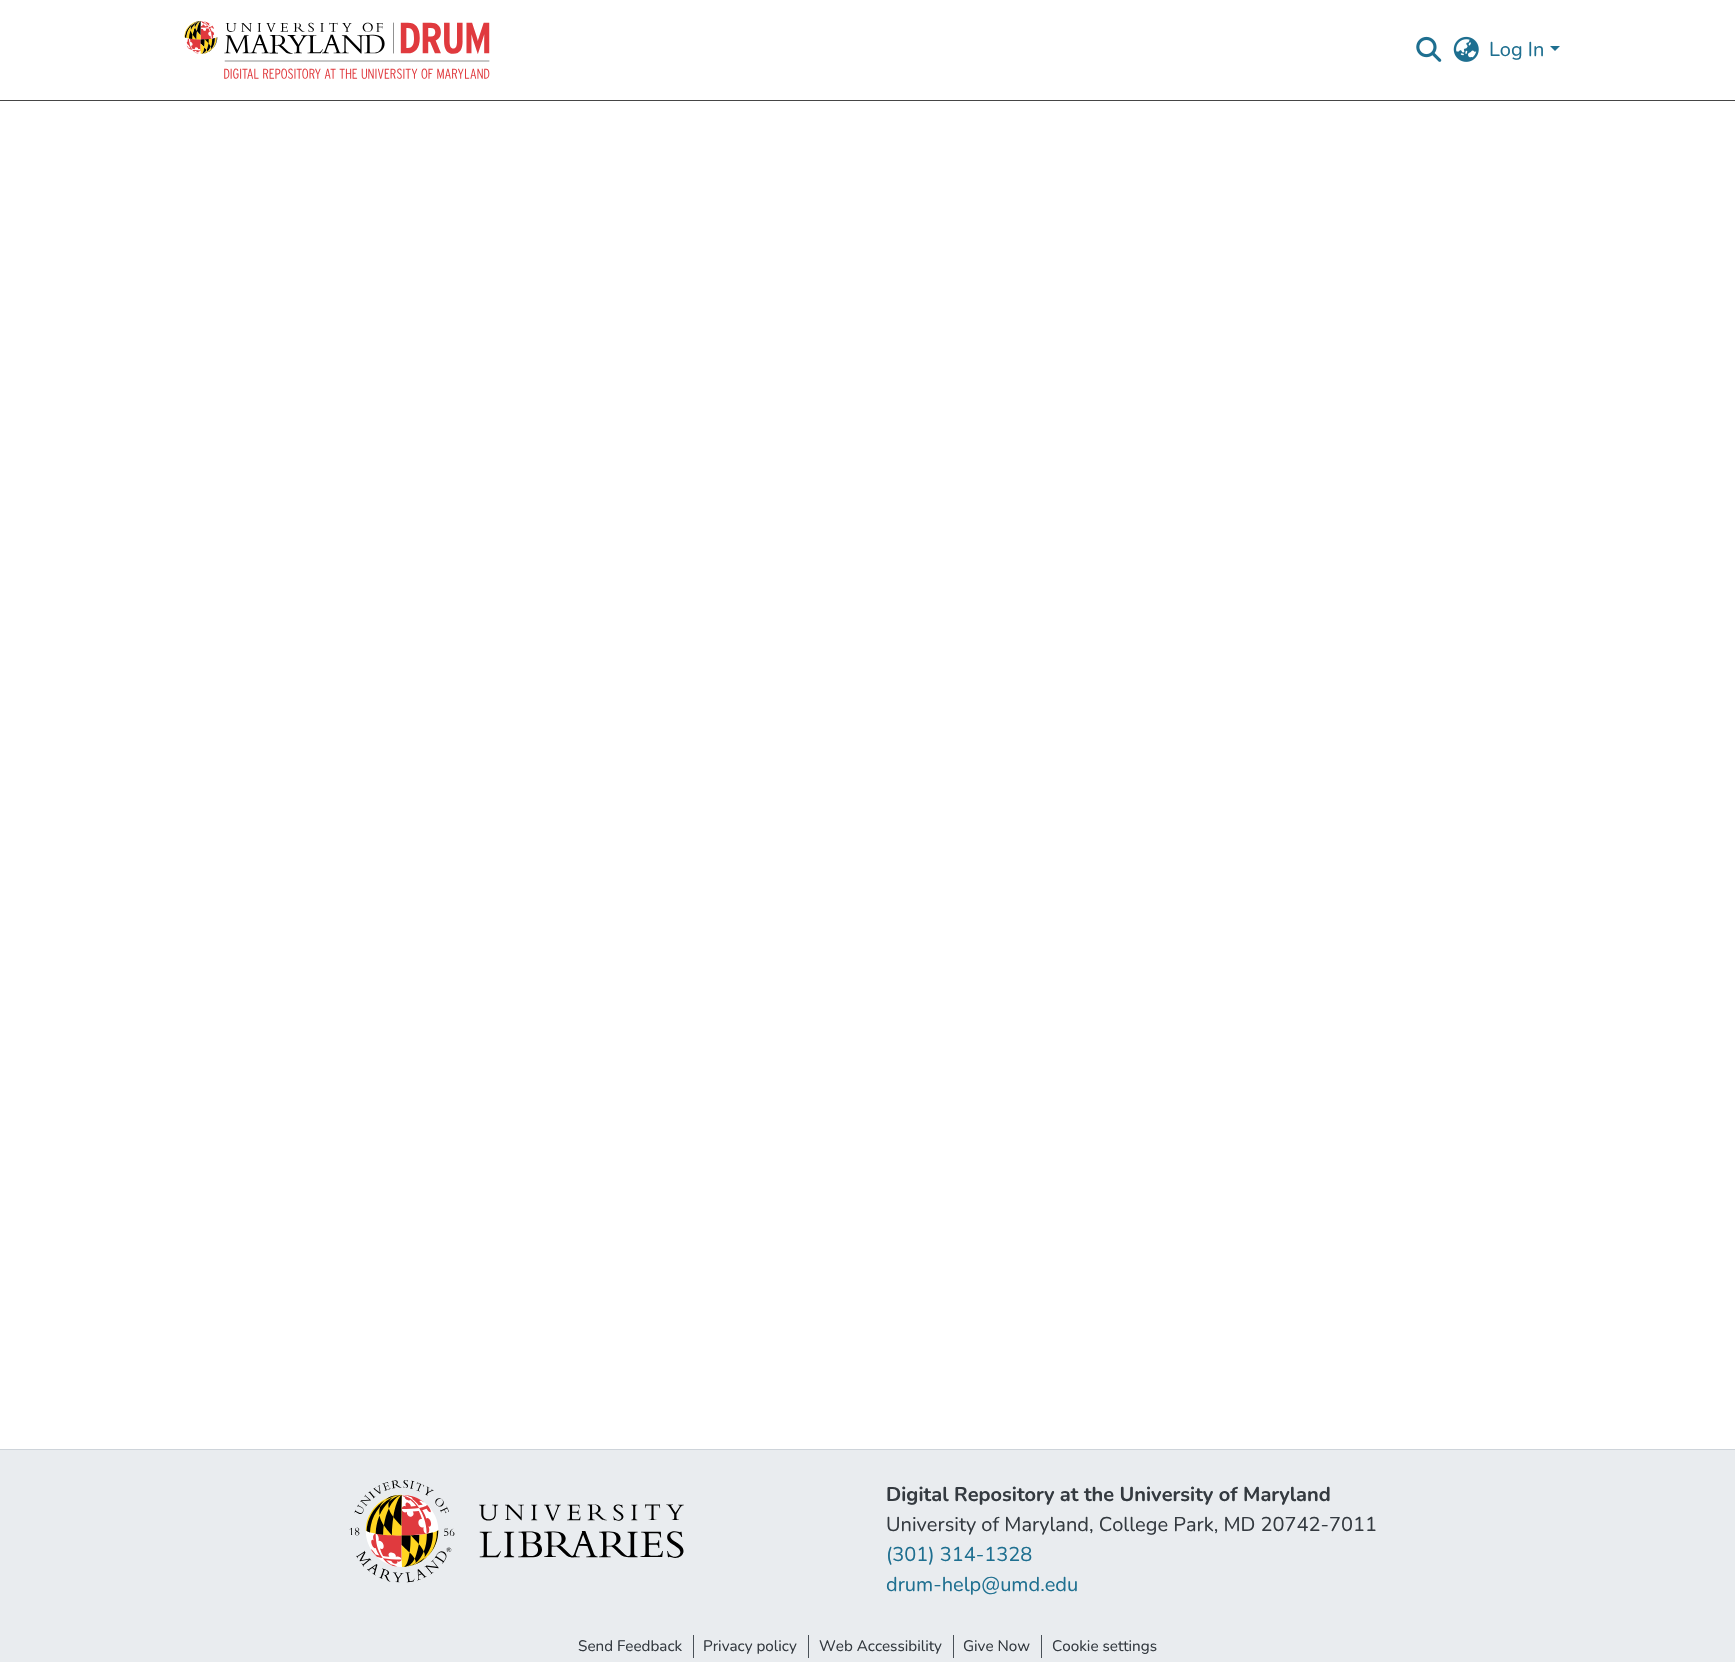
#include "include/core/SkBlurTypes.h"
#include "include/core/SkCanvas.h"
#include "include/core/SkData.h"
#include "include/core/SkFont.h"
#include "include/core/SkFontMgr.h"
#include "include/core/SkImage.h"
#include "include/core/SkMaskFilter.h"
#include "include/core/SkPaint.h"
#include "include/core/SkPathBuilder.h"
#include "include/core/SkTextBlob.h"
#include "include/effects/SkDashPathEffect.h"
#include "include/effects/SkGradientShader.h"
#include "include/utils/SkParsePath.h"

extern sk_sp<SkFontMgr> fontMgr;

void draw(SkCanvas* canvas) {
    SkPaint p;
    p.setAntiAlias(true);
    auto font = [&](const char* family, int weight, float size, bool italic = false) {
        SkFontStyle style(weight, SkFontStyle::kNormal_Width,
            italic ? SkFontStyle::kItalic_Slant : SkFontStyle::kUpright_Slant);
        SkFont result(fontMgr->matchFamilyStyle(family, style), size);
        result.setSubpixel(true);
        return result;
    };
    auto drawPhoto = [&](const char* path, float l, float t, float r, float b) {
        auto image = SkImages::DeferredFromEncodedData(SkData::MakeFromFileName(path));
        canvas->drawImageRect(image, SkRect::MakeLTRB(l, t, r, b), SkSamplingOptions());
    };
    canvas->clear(0xFFFFFFFF);
    p.setColor(0xFF454545);
    canvas->drawRect(SkRect::MakeLTRB(0, 100, 1735, 101), p);
    drawPhoto("media/1.png", 184, 20, 490, 79);
    drawPhoto("media/2.png", 1416, 36, 1442, 62);
    drawPhoto("media/3.png", 1453, 36, 1479, 62);
    auto font1 = font("Nunito", 400, 20);
    p.setColor(0xFF1E6F90);
    canvas->drawString("Log In", 1489, 56, font1, p);
    canvas->drawPath(SkPathBuilder().moveTo(1550, 46).lineTo(1560, 46).lineTo(1555, 51).close().detach(), p);
    p.setColor(0xFFE9ECEF);
    canvas->drawRect(SkRect::MakeLTRB(0, 1450, 1735, 1662), p);
    p.setColor(0xFFCED4DA);
    canvas->drawRect(SkRect::MakeLTRB(0, 1449, 1735, 1450), p);
    drawPhoto("media/4.png", 349, 1480, 684, 1583);
    auto font2 = font("Nunito", 700, 20);
    p.setColor(0xFF343A40);
    canvas->drawString("Digital Repository at the University of Maryland", 886, 1501, font2, p);
    canvas->drawString("University of Maryland, College Park, MD 20742-7011", 886, 1531, font1, p);
    p.setColor(0xFF1E6F90);
    canvas->drawString("(301) 314-1328", 886, 1561, font1, p);
    canvas->drawString("drum-help@umd.edu", 886, 1591, font1, p);
    auto font3 = font("Nunito", 400, 15.25f);
    p.setColor(0xFF343A40);
    canvas->drawString("Send Feedback", 578, 1651, font3, p);
    p.setColor(0xFF495057);
    canvas->drawRect(SkRect::MakeLTRB(693, 1635, 694, 1658), p);
    p.setColor(0xFF343A40);
    canvas->drawString("Privacy policy", 703, 1651, font3, p);
    p.setColor(0xFF495057);
    canvas->drawRect(SkRect::MakeLTRB(808, 1635, 809, 1658), p);
    p.setColor(0xFF343A40);
    canvas->drawString("Web Accessibility", 819, 1651, font3, p);
    p.setColor(0xFF495057);
    canvas->drawRect(SkRect::MakeLTRB(953, 1635, 954, 1658), p);
    p.setColor(0xFF343A40);
    canvas->drawString("Give Now", 963, 1651, font3, p);
    p.setColor(0xFF495057);
    canvas->drawRect(SkRect::MakeLTRB(1041, 1635, 1042, 1658), p);
    p.setColor(0xFF343A40);
    canvas->drawString("Cookie settings", 1052, 1651, font3, p);
}
